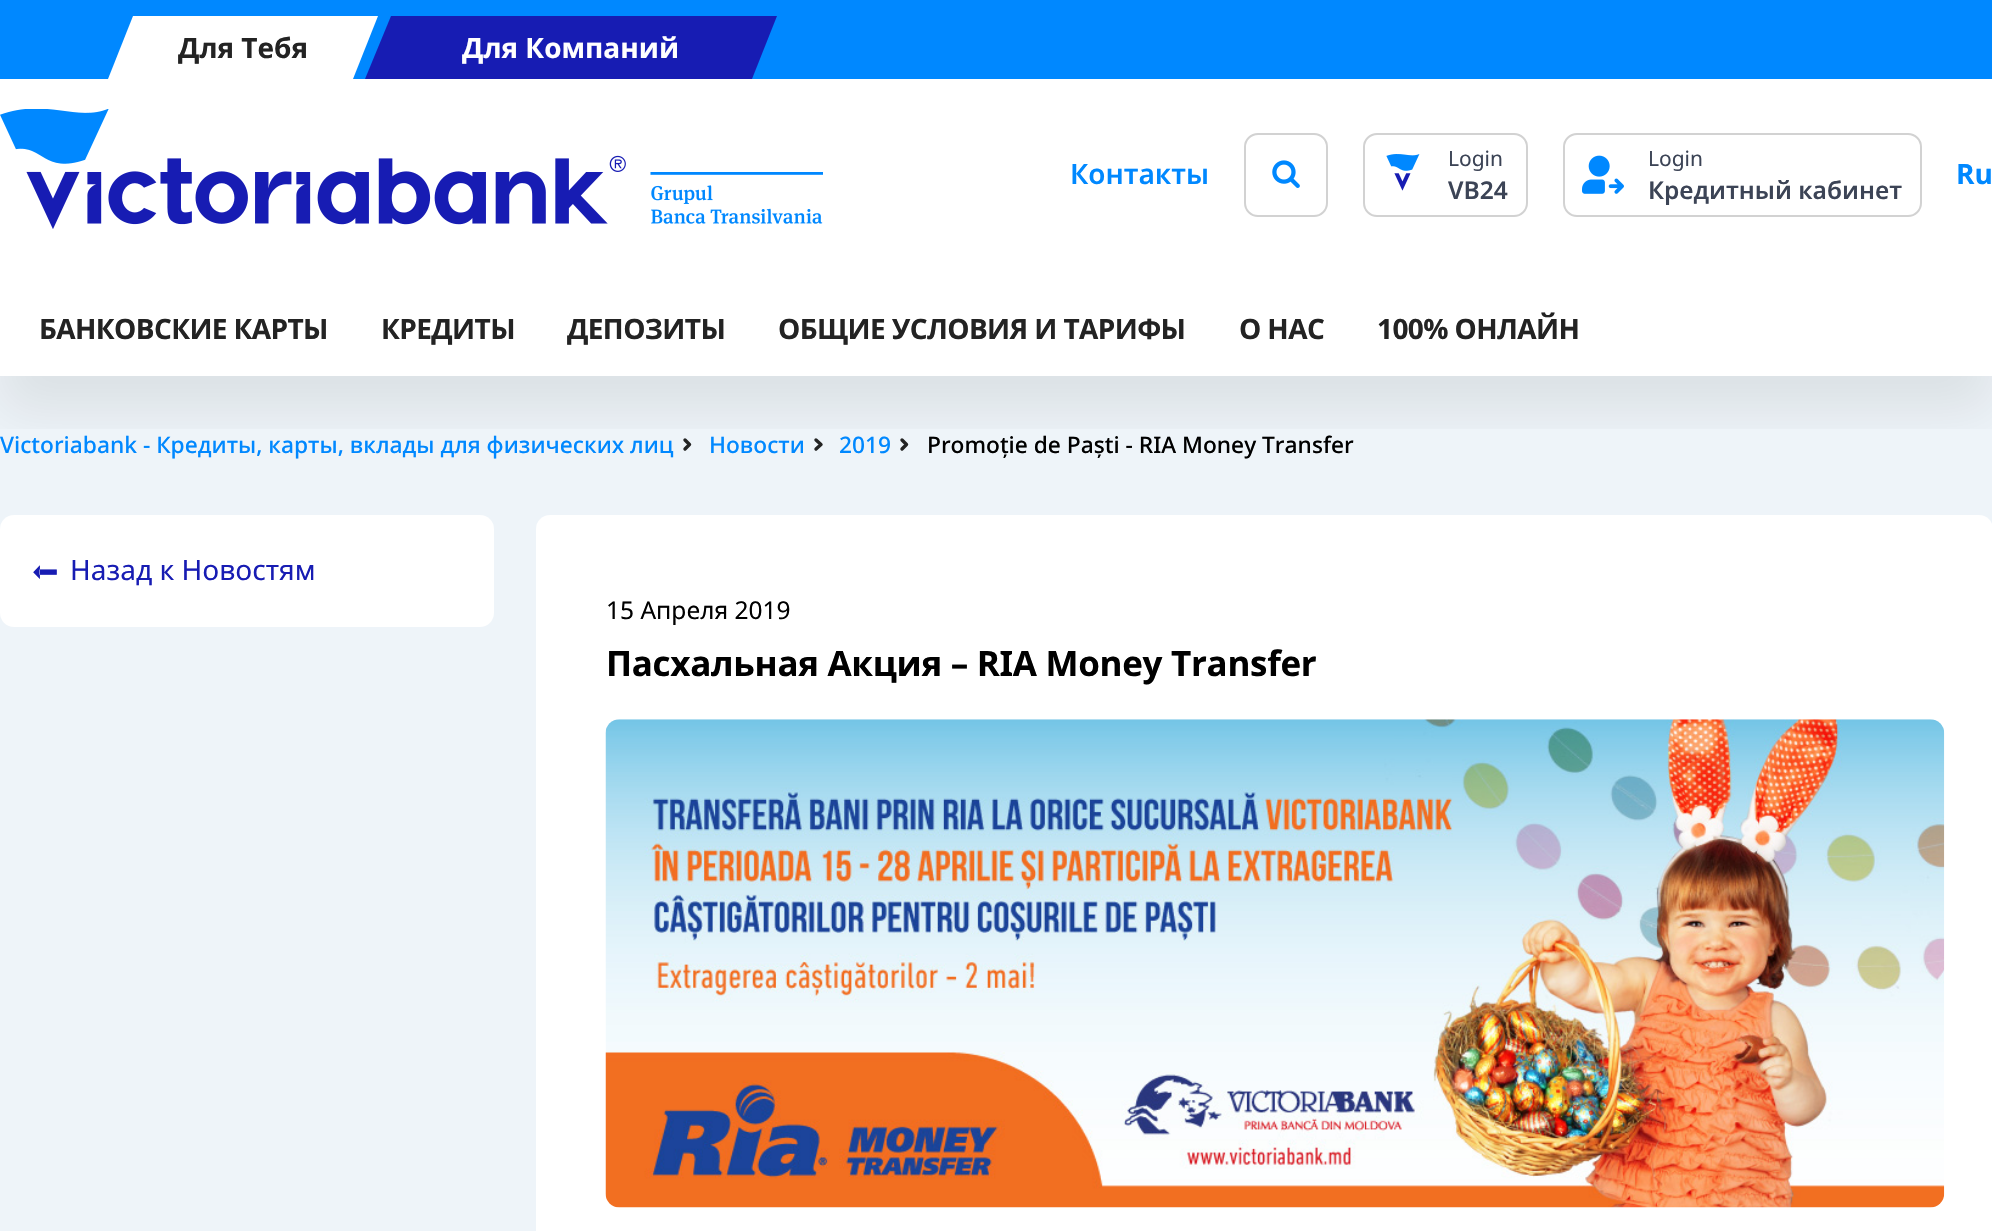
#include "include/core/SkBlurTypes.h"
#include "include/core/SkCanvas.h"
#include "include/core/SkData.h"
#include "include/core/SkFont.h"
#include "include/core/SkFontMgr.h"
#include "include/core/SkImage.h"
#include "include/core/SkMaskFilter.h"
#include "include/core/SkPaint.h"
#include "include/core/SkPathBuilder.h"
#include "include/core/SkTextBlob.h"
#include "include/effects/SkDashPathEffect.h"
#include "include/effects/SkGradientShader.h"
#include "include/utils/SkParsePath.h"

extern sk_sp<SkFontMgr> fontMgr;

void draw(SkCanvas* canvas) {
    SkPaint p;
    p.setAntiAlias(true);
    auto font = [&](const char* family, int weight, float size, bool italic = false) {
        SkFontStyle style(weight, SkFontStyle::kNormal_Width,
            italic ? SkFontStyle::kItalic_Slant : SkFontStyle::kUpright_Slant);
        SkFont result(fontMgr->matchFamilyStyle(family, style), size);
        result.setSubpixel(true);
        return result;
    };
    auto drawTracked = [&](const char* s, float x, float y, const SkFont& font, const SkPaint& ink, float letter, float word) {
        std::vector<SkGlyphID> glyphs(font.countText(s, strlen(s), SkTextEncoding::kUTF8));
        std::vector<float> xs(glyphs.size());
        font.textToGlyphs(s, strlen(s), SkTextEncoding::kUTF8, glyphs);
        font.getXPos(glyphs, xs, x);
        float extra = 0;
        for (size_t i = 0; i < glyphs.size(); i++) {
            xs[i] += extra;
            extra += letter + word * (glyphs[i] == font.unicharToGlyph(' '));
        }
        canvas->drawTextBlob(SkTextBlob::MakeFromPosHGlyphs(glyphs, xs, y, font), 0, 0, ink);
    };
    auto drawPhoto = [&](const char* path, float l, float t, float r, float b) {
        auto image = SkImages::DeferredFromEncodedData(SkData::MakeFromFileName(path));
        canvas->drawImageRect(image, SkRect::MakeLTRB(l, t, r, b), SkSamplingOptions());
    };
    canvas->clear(0xFFEEF4F9);
    p.setColor(0xFF0088FF);
    canvas->drawRect(SkRect::MakeLTRB(0, 0, 1992, 79), p);
    p.setColor(0xFFFFFFFF);
    canvas->drawPath(SkPathBuilder().moveTo(133, 16).lineTo(378, 16).lineTo(353, 79).lineTo(108, 79).close().detach(), p);
    auto font1 = font("Noto Sans", 700, 28);
    p.setColor(0xFF232323);
    canvas->drawString("Для Тебя", 178, 58, font1, p);
    p.setColor(0xFF171CB3);
    canvas->drawPath(SkPathBuilder().moveTo(391, 16).lineTo(777, 16).lineTo(752, 79).lineTo(365, 79).close().detach(), p);
    p.setColor(0xFFFFFFFF);
    canvas->drawString("Для Компаний", 462, 58, font1, p);
    canvas->drawRect(SkRect::MakeLTRB(0, 79, 1992, 376), p);
    drawPhoto("media/1.png", 0, 109, 823, 229);
    auto font2 = font("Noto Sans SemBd", 600, 28);
    p.setColor(0xFF0088FF);
    canvas->drawString("Контакты", 1070, 184, font2, p);
    p.setStyle(SkPaint::kStroke_Style);
    p.setStrokeWidth(2);
    p.setColor(0xFFD2D2D2);
    canvas->drawRoundRect(SkRect::MakeLTRB(1245, 134, 1327, 216), 13, 13, p);
    drawPhoto("media/2.png", 1272, 160, 1300, 188);
    canvas->drawRoundRect(SkRect::MakeLTRB(1364, 134, 1527, 216), 13, 13, p);
    drawPhoto("media/3.png", 1386, 154, 1420, 191);
    auto font3 = font("Noto Sans", 400, 21);
    p.setStyle(SkPaint::kFill_Style);
    p.setColor(0xFF3C4456);
    canvas->drawString("Login", 1448, 166, font3, p);
    auto font4 = font("Noto Sans SemBd", 600, 24.5f);
    canvas->drawString("VB24", 1448, 199, font4, p);
    p.setStyle(SkPaint::kStroke_Style);
    p.setColor(0xFFD2D2D2);
    canvas->drawRoundRect(SkRect::MakeLTRB(1564, 134, 1921, 216), 13, 13, p);
    drawPhoto("media/4.png", 1582, 155, 1624, 194);
    p.setStyle(SkPaint::kFill_Style);
    p.setColor(0xFF3C4456);
    canvas->drawString("Login", 1648, 166, font3, p);
    canvas->drawString("Кредитный кабинет", 1648, 199, font4, p);
    p.setColor(0xFF0088FF);
    canvas->drawString("Ru", 1956, 184, font1, p);
    p.setStyle(SkPaint::kStroke_Style);
    p.setStrokeWidth(3.4f);
    p.setStrokeCap(SkPaint::kRound_Cap);
    p.setStrokeJoin(SkPaint::kRound_Join);
    p.setColor(0xFF232323);
    canvas->drawPath(SkPathBuilder().moveTo(685, 440).lineTo(689.5f, 444.5f).lineTo(685, 449).detach(), p);
    canvas->drawPath(SkPathBuilder().moveTo(816, 440).lineTo(821, 444.5f).lineTo(816, 449).detach(), p);
    canvas->drawPath(SkPathBuilder().moveTo(902, 440).lineTo(906.5f, 444.5f).lineTo(902, 449).detach(), p);
    canvas->save();
    canvas->clipRect(SkRect::MakeLTRB(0, 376, 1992, 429));
    p.setStyle(SkPaint::kFill_Style);
    p.setColor(0x14000000);
    p.setMaskFilter(SkMaskFilter::MakeBlur(kNormal_SkBlurStyle, 26));
    canvas->drawRect(SkRect::MakeLTRB(0, 326, 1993, 411), p);
    p.setMaskFilter(nullptr);
    canvas->restore();
    p.setColor(0xFF232323);
    {
        const struct { const char* s; float x, y; } items[] = {
            {"БАНКОВСКИЕ КАРТЫ", 39, 339},
            {"КРЕДИТЫ", 381, 339},
            {"ДЕПОЗИТЫ", 567, 339},
            {"ОБЩИЕ УСЛОВИЯ И ТАРИФЫ", 778, 339},
            {"О НАС", 1239, 339},
            {"100% ОНЛАЙН", 1377, 339},
        };
        for (auto [s, x, y] : items) {
            drawTracked(s, x, y, font1, p, -0.6f, 0);
        }
    }
    auto font5 = font("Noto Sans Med", 500, 22.75f);
    p.setColor(0xFF0088FF);
    {
        const struct { const char* s; float x, y; } items[] = {
            {"Victoriabank - Кредиты, карты, вклады для физических лиц", 0, 453},
            {"Новости", 709, 453},
            {"2019", 839, 453},
        };
        for (auto [s, x, y] : items) {
            canvas->drawString(s, x, y, font5, p);
        }
    }
    p.setColor(0xFF000000);
    canvas->drawString("Promoție de Paști - RIA Money Transfer", 927, 453, font5, p);
    p.setColor(0xFFFFFFFF);
    canvas->drawRoundRect(SkRect::MakeLTRB(0, 515, 494, 627), 14, 14, p);
    auto font6 = font("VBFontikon", 400, 46);
    p.setColor(0xFF171CB3);
    canvas->save();
    canvas->rotate(180, 68, 552);
    canvas->drawString("8", 68, 552, font6, p);
    canvas->restore();
    auto font7 = font("Noto Sans", 400, 28);
    canvas->drawString("Назад к Новостям", 70, 580, font7, p);
    p.setColor(0xFFFFFFFF);
    canvas->drawRoundRect(SkRect::MakeLTRB(536, 515, 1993, 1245), 14, 14, p);
    auto font8 = font("Noto Sans", 400, 24.5f);
    p.setColor(0xFF000000);
    canvas->drawString("15 Апреля 2019", 606, 619, font8, p);
    auto font9 = font("Noto Sans", 700, 35);
    drawTracked("Пасхальная Акция – RIA Money Transfer", 606, 676, font9, p, -0.3f, 0);
    drawPhoto("media/5.png", 605, 719, 1945, 1208);
}
